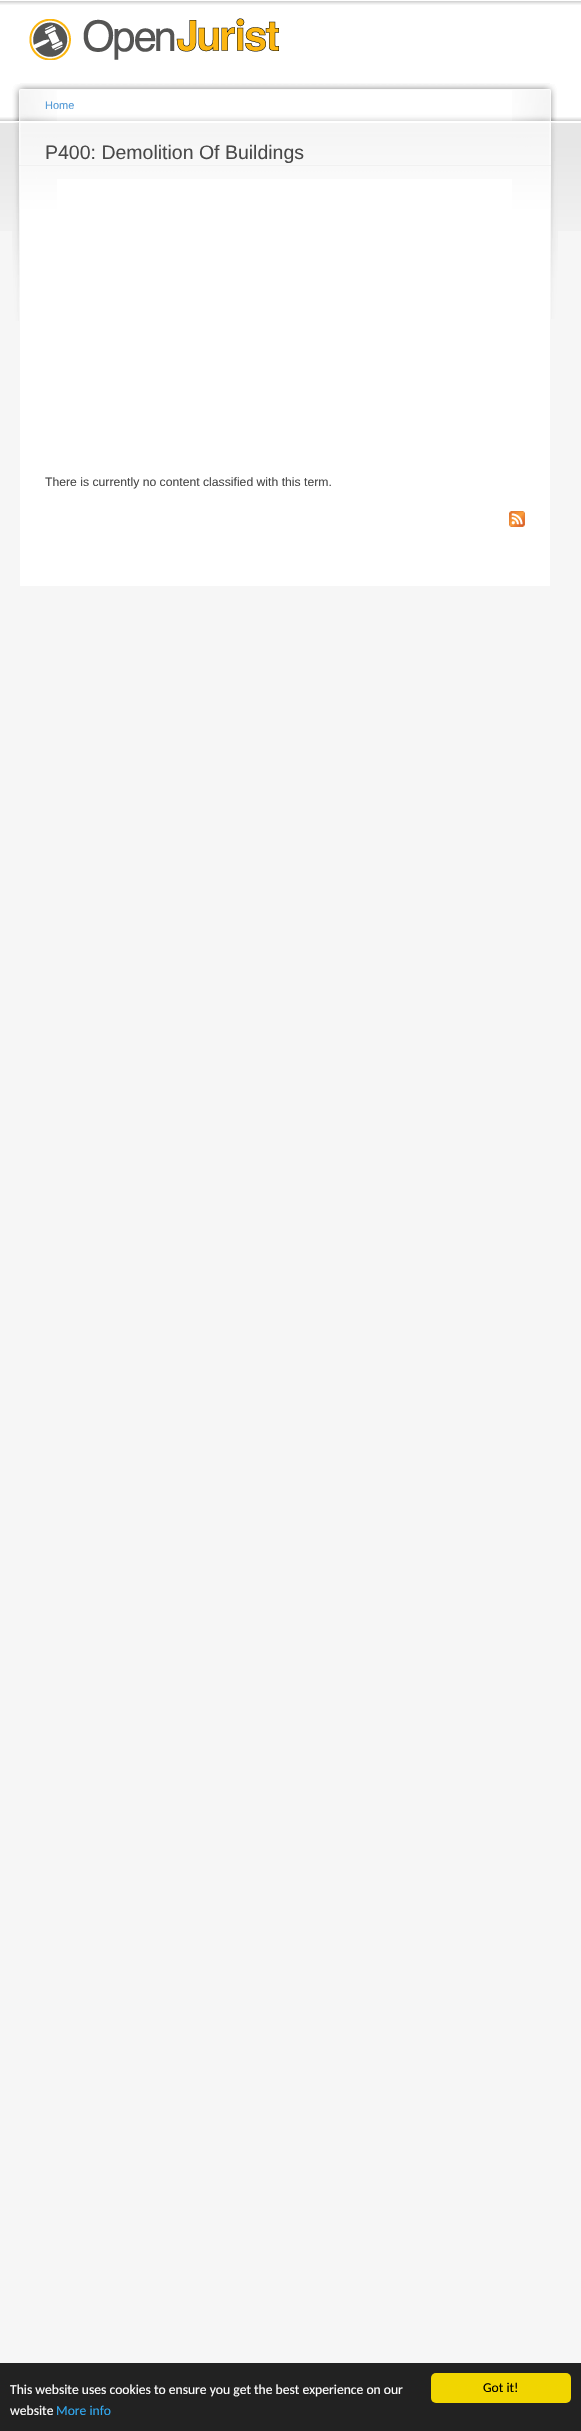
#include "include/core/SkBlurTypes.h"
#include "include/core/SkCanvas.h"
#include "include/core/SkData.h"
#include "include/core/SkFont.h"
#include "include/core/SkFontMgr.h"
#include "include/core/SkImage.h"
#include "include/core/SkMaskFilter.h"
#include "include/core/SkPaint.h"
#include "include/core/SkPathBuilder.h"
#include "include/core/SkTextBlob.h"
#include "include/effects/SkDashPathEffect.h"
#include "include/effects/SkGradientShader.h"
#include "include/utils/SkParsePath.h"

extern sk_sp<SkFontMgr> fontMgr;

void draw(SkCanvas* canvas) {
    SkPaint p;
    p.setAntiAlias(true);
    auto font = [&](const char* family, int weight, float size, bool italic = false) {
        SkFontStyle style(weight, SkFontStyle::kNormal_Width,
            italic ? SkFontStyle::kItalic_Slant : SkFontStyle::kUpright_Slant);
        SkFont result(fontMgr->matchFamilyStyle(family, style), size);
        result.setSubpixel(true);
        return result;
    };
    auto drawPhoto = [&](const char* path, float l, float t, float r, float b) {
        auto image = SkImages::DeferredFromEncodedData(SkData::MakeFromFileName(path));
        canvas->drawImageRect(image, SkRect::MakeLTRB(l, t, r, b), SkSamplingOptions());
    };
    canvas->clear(0xFFF6F6F6);
    drawPhoto("media/1.png", 0, 0, 581, 231);
    drawPhoto("media/2.png", 29, 18, 279, 60);
    p.setColor(0xFFFFFFFF);
    canvas->drawRect(SkRect::MakeLTRB(20, 117, 550, 586), p);
    drawPhoto("media/3.png", 20, 83, 550, 179);
    drawPhoto("media/4.png", 512, 84, 558, 319);
    drawPhoto("media/5.png", 12, 84, 57, 321);
    auto font1 = font("Liberation Sans", 400, 11);
    p.setColor(0xFF5299D6);
    canvas->drawString("Home", 45, 109, font1, p);
    p.setColor(0xFFF1F1F1);
    canvas->drawRect(SkRect::MakeLTRB(19, 165, 551, 166), p);
    auto font2 = font("Liberation Sans", 400, 19.5f);
    p.setColor(0xFF494949);
    canvas->drawString("P400: Demolition Of Buildings", 45, 159, font2, p);
    auto font3 = font("Liberation Sans", 400, 12.2f);
    canvas->drawString("There is currently no content classified with this term.", 45, 486, font3, p);
    drawPhoto("media/6.png", 509, 511, 525, 527);
    p.setColor(0xFF222222);
    canvas->drawRect(SkRect::MakeLTRB(0, 2363, 581, 2431), p);
    auto font4 = font("Carlito", 400, 13.6f);
    p.setColor(0xFFFFFFFF);
    canvas->drawString("This website uses cookies to ensure you get the best experience on our", 10, 2394, font4, p);
    canvas->drawString("website", 10, 2415, font4, p);
    p.setColor(0xFF31A8F0);
    canvas->drawString("More info", 56, 2415, font4, p);
    p.setColor(0xFFF1D600);
    canvas->drawRoundRect(SkRect::MakeLTRB(431, 2373, 571, 2403), 5, 5, p);
    p.setColor(0xFF000000);
    canvas->drawString("Got it!", 483, 2392, font4, p);
}
